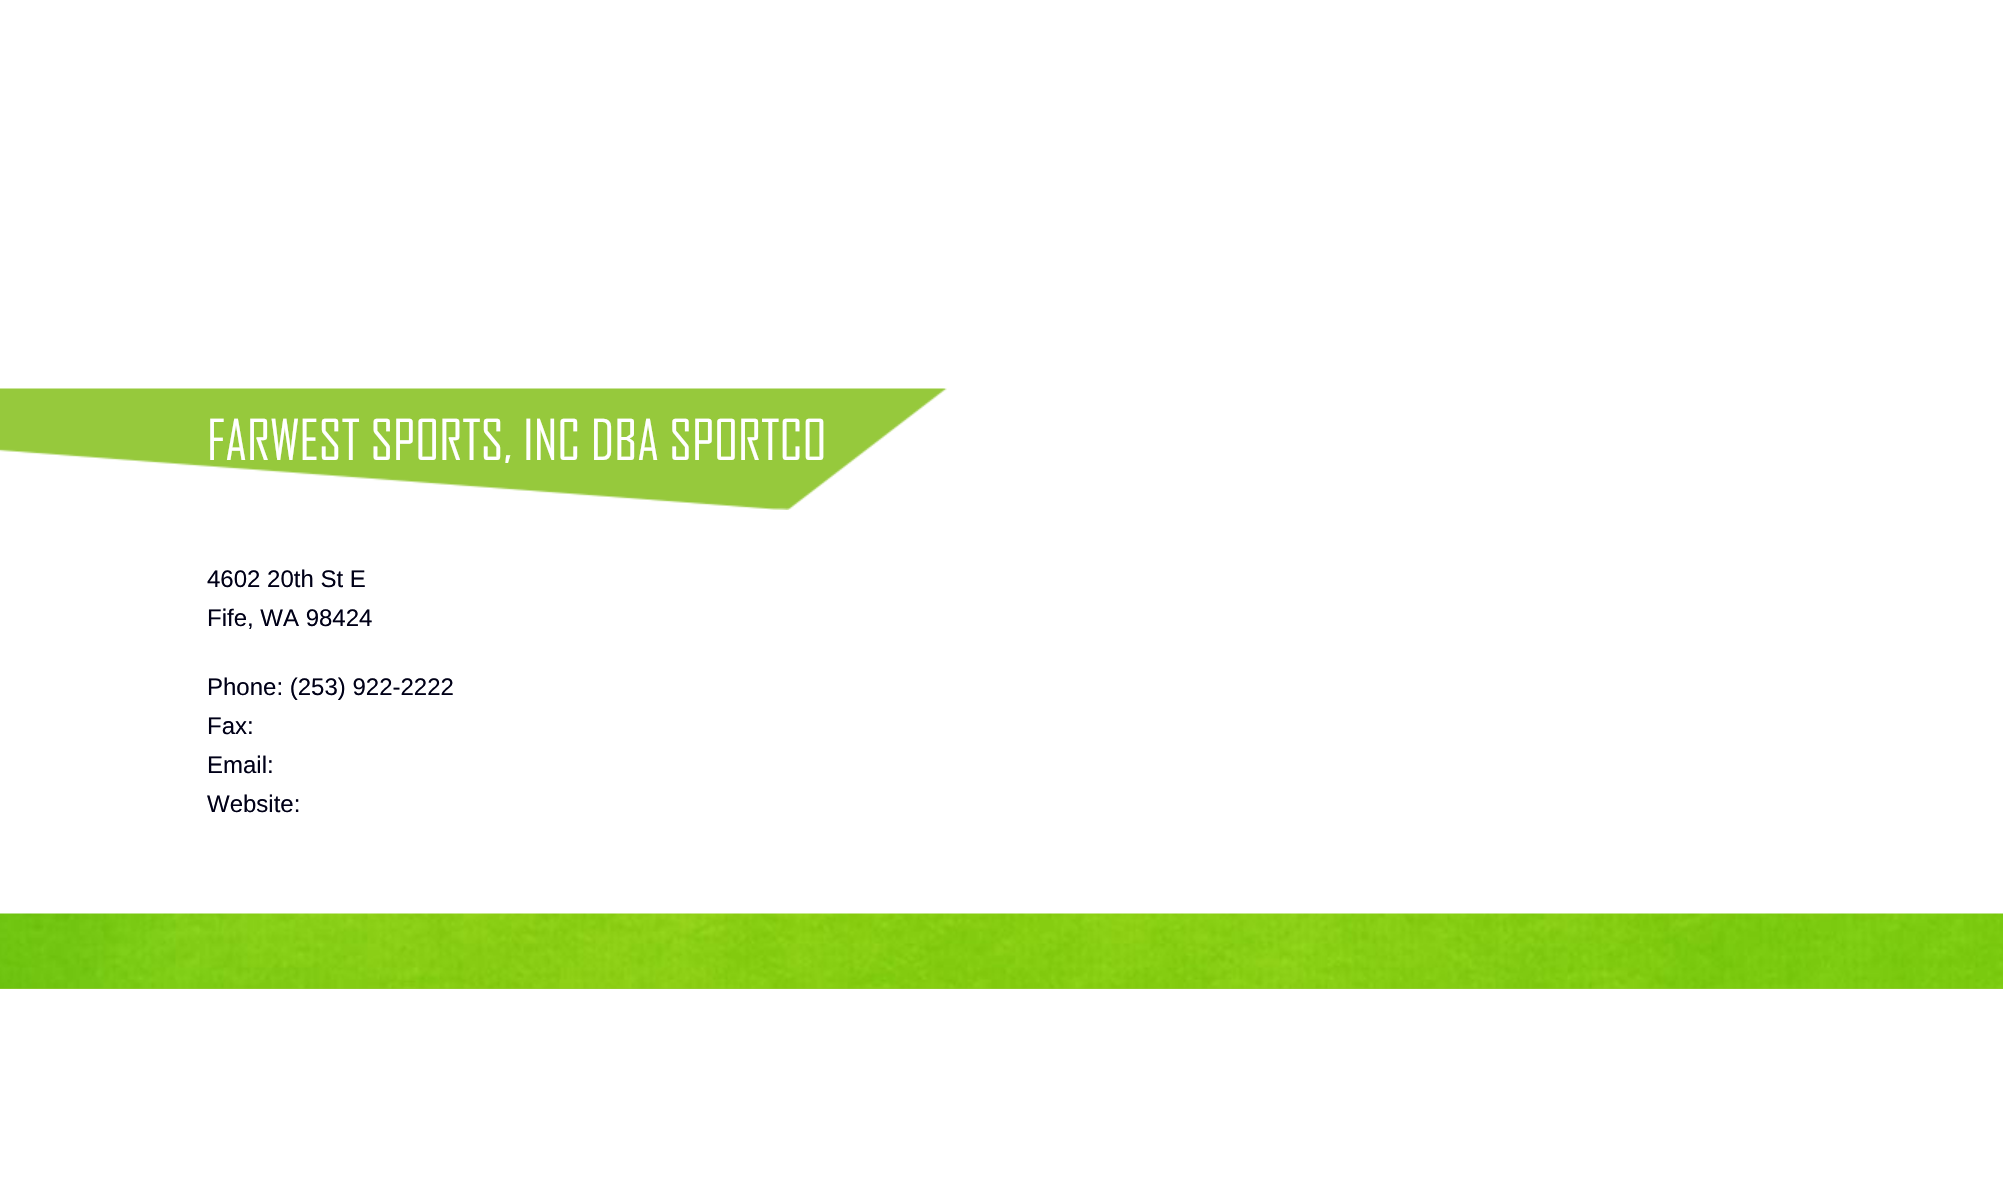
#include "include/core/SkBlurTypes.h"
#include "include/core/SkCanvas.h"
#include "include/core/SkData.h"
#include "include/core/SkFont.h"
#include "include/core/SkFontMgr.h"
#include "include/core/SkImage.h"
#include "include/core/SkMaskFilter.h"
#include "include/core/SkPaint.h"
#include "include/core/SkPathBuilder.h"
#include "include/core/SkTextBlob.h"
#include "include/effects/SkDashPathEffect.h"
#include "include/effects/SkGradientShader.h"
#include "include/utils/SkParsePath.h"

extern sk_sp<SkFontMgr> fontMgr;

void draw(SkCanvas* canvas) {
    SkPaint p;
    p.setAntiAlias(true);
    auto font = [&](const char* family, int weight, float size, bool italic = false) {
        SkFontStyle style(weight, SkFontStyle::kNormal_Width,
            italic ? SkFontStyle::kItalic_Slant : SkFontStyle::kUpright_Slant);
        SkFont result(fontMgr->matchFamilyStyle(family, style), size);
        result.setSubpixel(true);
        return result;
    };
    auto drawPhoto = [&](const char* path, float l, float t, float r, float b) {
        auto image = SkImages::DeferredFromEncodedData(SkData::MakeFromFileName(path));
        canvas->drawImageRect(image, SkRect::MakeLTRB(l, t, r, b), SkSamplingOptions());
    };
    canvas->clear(0xFFFFFFFF);
    drawPhoto("media/1.png", 0, 388, 947, 510);
    auto font1 = font("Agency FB", 400, 54);
    p.setColor(0xFFFFFFFF);
    canvas->drawString("FARWEST SPORTS, INC DBA SPORTCO", 207, 460, font1, p);
    auto font2 = font("Liberation Sans", 400, 24);
    p.setColor(0xFF000017);
    {
        const struct { const char* s; float x, y; } items[] = {
            {"4602 20th St E", 207, 587},
            {"Fife, WA 98424", 207, 626},
            {"Phone: (253) 922-2222", 207, 695},
            {"Fax:", 207, 734},
            {"Email:", 207, 773},
            {"Website:", 207, 812},
        };
        for (auto [s, x, y] : items) {
            canvas->drawString(s, x, y, font2, p);
        }
    }
    p.setColor(0xFF96C93C);
    canvas->drawRect(SkRect::MakeLTRB(0, 988, 2003, 989), p);
    drawPhoto("media/2.png", 0, 913, 2003, 989);
}
